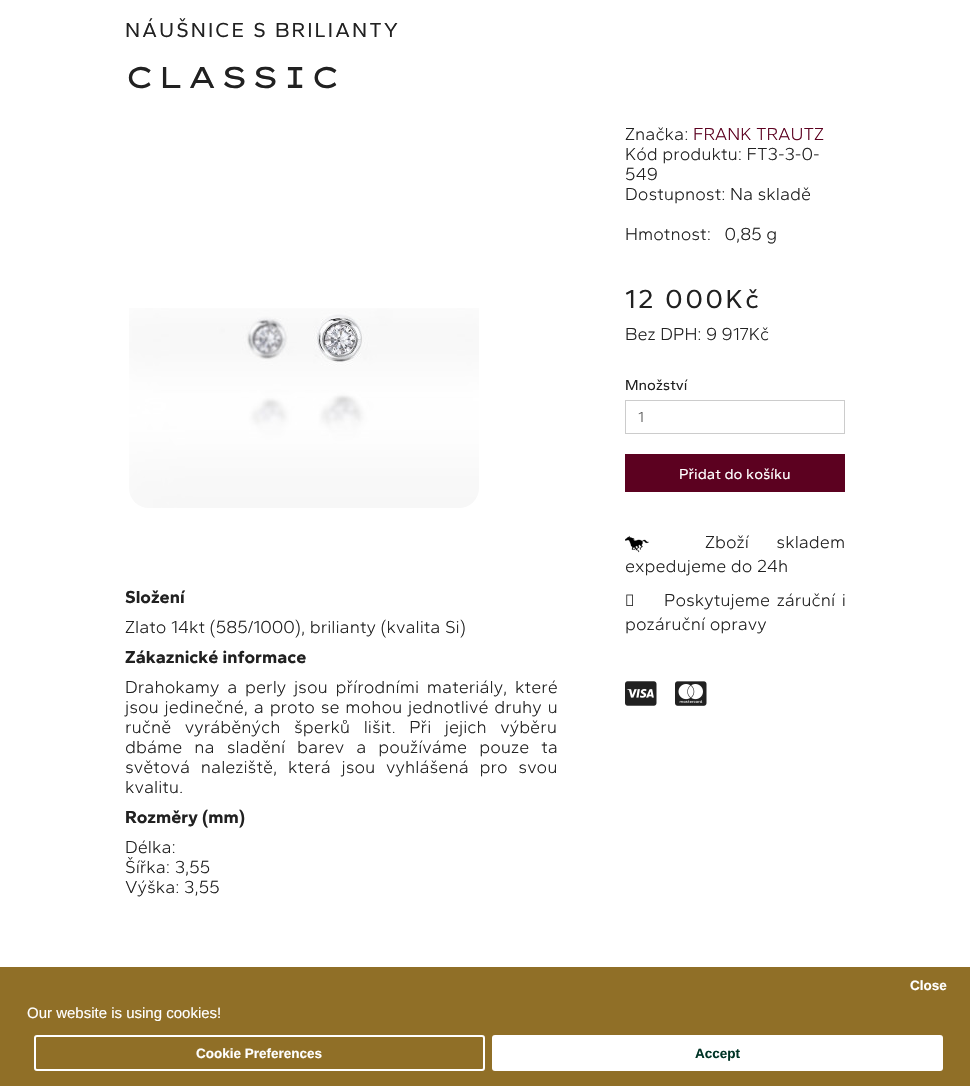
#include "include/core/SkBlurTypes.h"
#include "include/core/SkCanvas.h"
#include "include/core/SkData.h"
#include "include/core/SkFont.h"
#include "include/core/SkFontMgr.h"
#include "include/core/SkImage.h"
#include "include/core/SkMaskFilter.h"
#include "include/core/SkPaint.h"
#include "include/core/SkPathBuilder.h"
#include "include/core/SkTextBlob.h"
#include "include/effects/SkDashPathEffect.h"
#include "include/effects/SkGradientShader.h"
#include "include/utils/SkParsePath.h"

extern sk_sp<SkFontMgr> fontMgr;

void draw(SkCanvas* canvas) {
    SkPaint p;
    p.setAntiAlias(true);
    auto font = [&](const char* family, int weight, float size, bool italic = false) {
        SkFontStyle style(weight, SkFontStyle::kNormal_Width,
            italic ? SkFontStyle::kItalic_Slant : SkFontStyle::kUpright_Slant);
        SkFont result(fontMgr->matchFamilyStyle(family, style), size);
        result.setSubpixel(true);
        return result;
    };
    auto drawTracked = [&](const char* s, float x, float y, const SkFont& font, const SkPaint& ink, float letter, float word) {
        std::vector<SkGlyphID> glyphs(font.countText(s, strlen(s), SkTextEncoding::kUTF8));
        std::vector<float> xs(glyphs.size());
        font.textToGlyphs(s, strlen(s), SkTextEncoding::kUTF8, glyphs);
        font.getXPos(glyphs, xs, x);
        float extra = 0;
        for (size_t i = 0; i < glyphs.size(); i++) {
            xs[i] += extra;
            extra += letter + word * (glyphs[i] == font.unicharToGlyph(' '));
        }
        canvas->drawTextBlob(SkTextBlob::MakeFromPosHGlyphs(glyphs, xs, y, font), 0, 0, ink);
    };
    auto drawPhoto = [&](const char* path, float l, float t, float r, float b) {
        auto image = SkImages::DeferredFromEncodedData(SkData::MakeFromFileName(path));
        canvas->drawImageRect(image, SkRect::MakeLTRB(l, t, r, b), SkSamplingOptions());
    };
    canvas->clear(0xFFFFFFFF);
    auto font1 = font("Gantari", 400, 21);
    p.setColor(0xFF212121);
    drawTracked("NÁUŠNICE S BRILIANTY", 125, 37, font1, p, 2.1f, 0);
    auto font2 = font("Lexend Zetta", 400, 30);
    drawTracked("CLASSIC", 125, 88, font2, p, 3, 0);
    auto font3 = font("Gantari", 300, 18);
    canvas->drawString("Značka:", 625, 140, font3, p);
    p.setColor(0xFF5C0120);
    canvas->drawString("FRANK TRAUTZ", 693, 140, font3, p);
    p.setColor(0xFF212121);
    {
        const struct { const char* s; float x, y; } items[] = {
            {"Kód produktu: FT3-3-0-", 625, 160},
            {"549", 625, 180},
            {"Dostupnost: Na skladě", 625, 200},
            {"Hmotnost:   0,85 g", 625, 240},
        };
        for (auto [s, x, y] : items) {
            canvas->drawString(s, x, y, font3, p);
        }
    }
    auto font4 = font("Gantari", 400, 27);
    drawTracked("12 000Kč", 625, 308, font4, p, 2.75f, 0);
    canvas->drawString("Bez DPH: 9 917Kč", 625, 340, font3, p);
    auto font5 = font("Gantari", 400, 15);
    canvas->drawString("Množství", 625, 390, font5, p);
    p.setStyle(SkPaint::kStroke_Style);
    p.setStrokeWidth(1);
    p.setColor(0xFFCCCCCC);
    canvas->drawRect(SkRect::MakeLTRB(625.5f, 400.5f, 844.5f, 433.5f), p);
    auto font6 = font("Gantari", 300, 15);
    p.setStyle(SkPaint::kFill_Style);
    p.setColor(0xFF555555);
    canvas->drawString("1", 638, 422, font6, p);
    p.setColor(0xFF5C0120);
    canvas->drawRect(SkRect::MakeLTRB(625, 454, 845, 492), p);
    p.setColor(0xFFFFFFFF);
    canvas->drawString("Přidat do košíku", 679, 479, font5, p);
    drawPhoto("media/1.png", 625, 535, 649, 553);
    p.setColor(0xFF212121);
    drawTracked("Zboží skladem", 705, 548, font3, p, 0, 23);
    canvas->drawString("expedujeme do 24h", 625, 572, font3, p);
    drawPhoto("media/2.png", 626, 594, 633, 606);
    drawTracked("Poskytujeme záruční i", 664, 606, font3, p, 0, 2);
    canvas->drawString("pozáruční opravy", 625, 630, font3, p);
    drawPhoto("media/3.png", 625, 681, 657, 706);
    drawPhoto("media/4.png", 675, 681, 707, 706);
    drawPhoto("media/5.png", 129, 308, 479, 508);
    auto font7 = font("Gantari", 700, 18);
    canvas->drawString("Složení", 125, 603, font7, p);
    canvas->drawString("Zlato 14kt (585/1000), brilianty (kvalita Si)", 125, 633, font3, p);
    canvas->drawString("Zákaznické informace", 125, 663, font7, p);
    drawTracked("Drahokamy a perly jsou přírodními materiály, které", 125, 693, font3, p, 0, 3.25f);
    drawTracked("jsou jedinečné, a proto se mohou jednotlivé druhy u", 125, 713, font3, p, 0, 1.25f);
    drawTracked("ručně vyráběných šperků lišit. Při jejich výběru", 125, 733, font3, p, 0, 9);
    drawTracked("dbáme na sladění barev a používáme pouze ta", 125, 753, font3, p, 0, 7.5f);
    drawTracked("světová naleziště, která jsou vyhlášená pro svou", 125, 773, font3, p, 0, 6.25f);
    canvas->drawString("kvalitu.", 125, 793, font3, p);
    canvas->drawString("Rozměry (mm)", 125, 823, font7, p);
    {
        const struct { const char* s; float x, y; } items[] = {
            {"Délka:", 125, 853},
            {"Šířka: 3,55", 125, 873},
            {"Výška: 3,55", 125, 893},
        };
        for (auto [s, x, y] : items) {
            canvas->drawString(s, x, y, font3, p);
        }
    }
    p.setColor(0xFF906F27);
    canvas->drawRect(SkRect::MakeLTRB(0, 967, 970, 1086), p);
    auto font8 = font("Liberation Sans", 400, 15);
    p.setColor(0xFFFFFFFF);
    canvas->drawString("Our website is using cookies!", 27, 1018, font8, p);
    auto font9 = font("Liberation Sans", 700, 13.5f);
    canvas->drawString("Close", 910, 990, font9, p);
    p.setStyle(SkPaint::kStroke_Style);
    p.setStrokeWidth(2);
    canvas->drawRoundRect(SkRect::MakeLTRB(35, 1036, 484, 1070), 2, 2, p);
    p.setStyle(SkPaint::kFill_Style);
    canvas->drawString("Cookie Preferences", 196, 1058, font9, p);
    canvas->drawRoundRect(SkRect::MakeLTRB(492, 1035, 943, 1071), 3, 3, p);
    p.setColor(0xFF003426);
    canvas->drawString("Accept", 695, 1058, font9, p);
}
